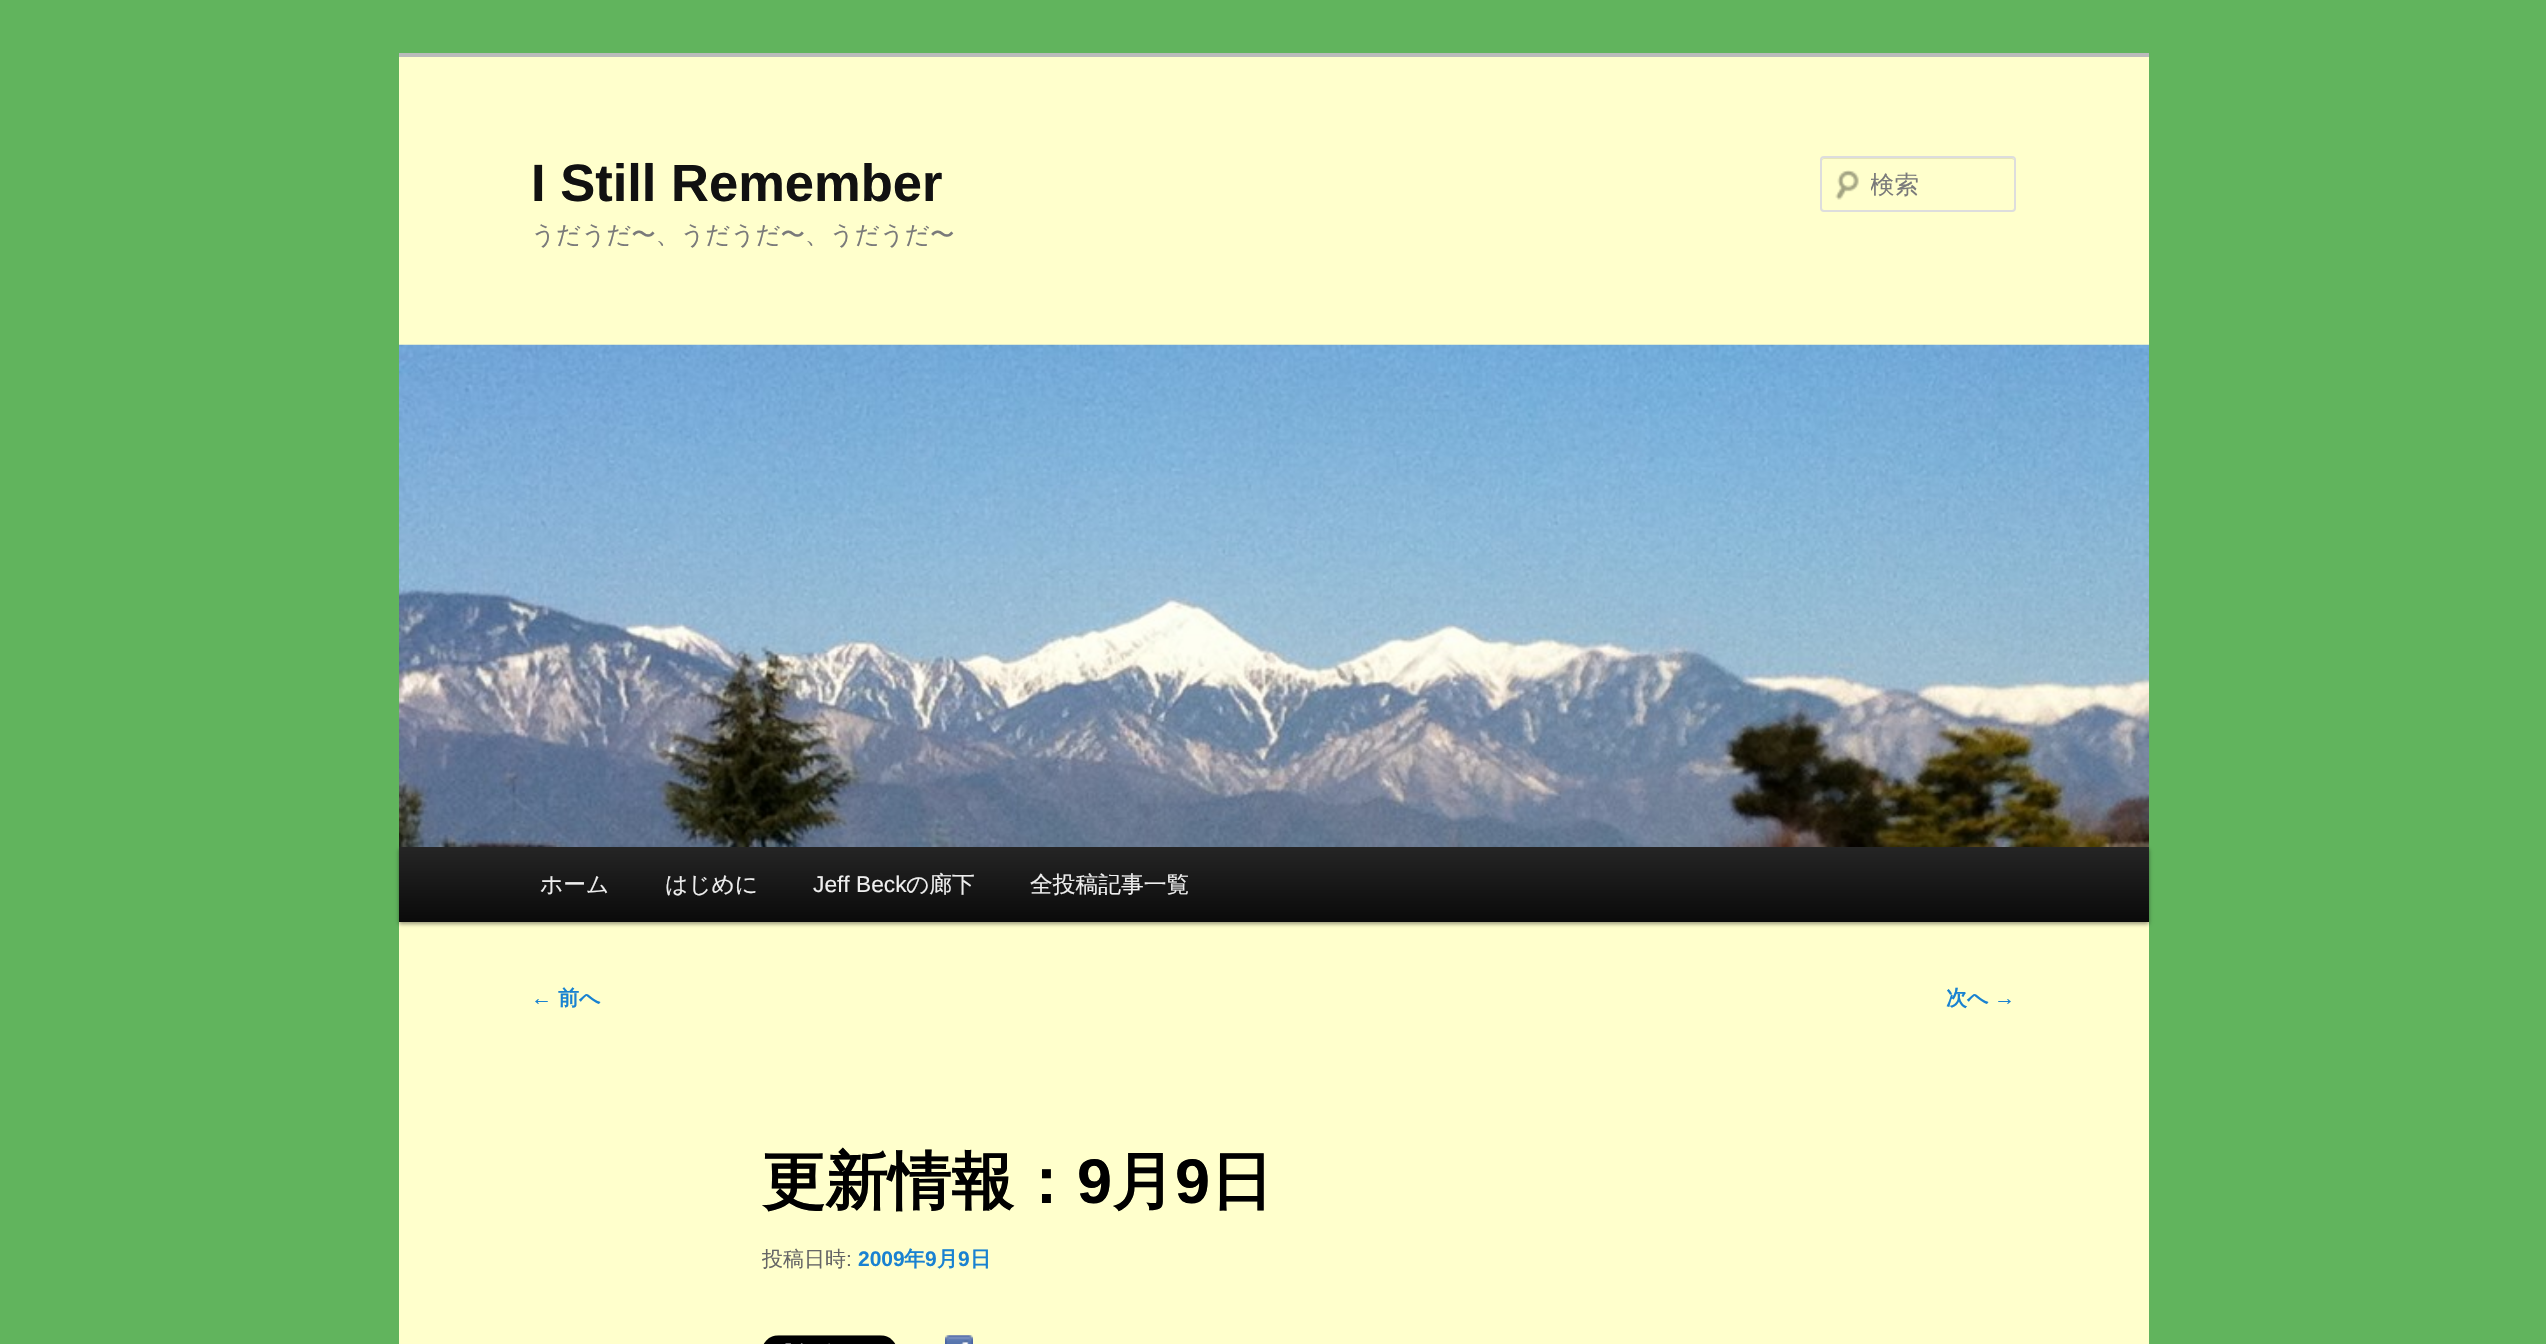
#include "include/core/SkBlurTypes.h"
#include "include/core/SkCanvas.h"
#include "include/core/SkData.h"
#include "include/core/SkFont.h"
#include "include/core/SkFontMgr.h"
#include "include/core/SkImage.h"
#include "include/core/SkMaskFilter.h"
#include "include/core/SkPaint.h"
#include "include/core/SkPathBuilder.h"
#include "include/core/SkTextBlob.h"
#include "include/effects/SkDashPathEffect.h"
#include "include/effects/SkGradientShader.h"
#include "include/utils/SkParsePath.h"

extern sk_sp<SkFontMgr> fontMgr;

void draw(SkCanvas* canvas) {
    SkPaint p;
    p.setAntiAlias(true);
    auto font = [&](const char* family, int weight, float size, bool italic = false) {
        SkFontStyle style(weight, SkFontStyle::kNormal_Width,
            italic ? SkFontStyle::kItalic_Slant : SkFontStyle::kUpright_Slant);
        SkFont result(fontMgr->matchFamilyStyle(family, style), size);
        result.setSubpixel(true);
        return result;
    };
    auto drawPhoto = [&](const char* path, float l, float t, float r, float b) {
        auto image = SkImages::DeferredFromEncodedData(SkData::MakeFromFileName(path));
        canvas->drawImageRect(image, SkRect::MakeLTRB(l, t, r, b), SkSamplingOptions());
    };
    canvas->clear(0xFF61B45D);
    p.setColor(0xFFFFFFCC);
    canvas->drawRect(SkRect::MakeLTRB(399, 57, 2149, 1344), p);
    p.setColor(0xFFBBBBBB);
    canvas->drawRect(SkRect::MakeLTRB(399, 53, 2149, 57), p);
    auto font1 = font("Liberation Sans", 700, 52.5f);
    p.setColor(0xFF111111);
    canvas->drawString("I Still Remember", 531, 201, font1, p);
    auto font2 = font("WenQuanYi Zen Hei", 500, 24.5f);
    p.setColor(0xFF7A7A7A);
    canvas->drawString("うだうだ〜、うだうだ〜、うだうだ〜", 531, 243, font2, p);
    drawPhoto("media/1.png", 1835, 170, 1859, 200);
    p.setColor(0xFFE6E6B8);
    canvas->drawPath(SkPathBuilder().moveTo(1824, 159).lineTo(2012, 159).lineTo(2014, 160).lineTo(2014, 161).lineTo(2014, 160).cubicTo(2014, 159, 2013, 158, 2012, 158).lineTo(1824, 158).cubicTo(1823, 158, 1822, 159, 1822, 160).lineTo(1822, 161).cubicTo(1822, 160, 1823, 159, 1824, 159).close().detach(), p);
    p.setStyle(SkPaint::kStroke_Style);
    p.setStrokeWidth(2);
    p.setColor(0xFFDDDDDD);
    canvas->drawRoundRect(SkRect::MakeLTRB(1821, 157, 2015, 211), 3, 3, p);
    canvas->save();
    canvas->clipRect(SkRect::MakeLTRB(1871, 170, 1997, 201));
    p.setStyle(SkPaint::kFill_Style);
    p.setColor(0xFF7A7A7A);
    canvas->drawString("検索", 1870, 193, font2, p);
    canvas->restore();
    p.setColor(0x66000000);
    p.setMaskFilter(SkMaskFilter::MakeBlur(kNormal_SkBlurStyle, 2));
    canvas->drawRect(SkRect::MakeLTRB(399, 849, 2149, 924), p);
    p.setMaskFilter(nullptr);
    drawPhoto("media/2.png", 399, 344, 2149, 847);
    {
        const SkColor colors[] = {0xFF252525, 0xFF0A0A0A};
        const float stops[] = {0, 1};
        const SkPoint ends[] = {{1274, 847}, {1274, 922}};
        p.setShader(SkGradientShader::MakeLinear(ends, colors, stops, 2, SkTileMode::kClamp));
        p.setAlpha(255);
    }
    canvas->drawRect(SkRect::MakeLTRB(399, 847, 2149, 922), p);
    auto font3 = font("WenQuanYi Zen Hei", 500, 22.75f);
    p.setShader(nullptr);
    p.setColor(0xFFEEEEEE);
    canvas->drawString("ホーム", 540, 892, font3, p);
    canvas->drawString("はじめに", 665, 892, font3, p);
    auto font4 = font("Liberation Sans", 400, 22.75f);
    canvas->drawString("Jeff Beck", 813, 892, font4, p);
    canvas->drawString("の廊下", 906, 892, font3, p);
    canvas->drawString("全投稿記事一覧", 1030, 892, font3, p);
    auto font5 = font("Liberation Sans", 400, 21);
    p.setColor(0xFF1982D1);
    canvas->drawString("←", 531, 1005, font5, p);
    auto font6 = font("WenQuanYi Zen Hei", 700, 21);
    canvas->drawString("前へ", 558, 1005, font6, p);
    canvas->drawString("次へ", 1946, 1005, font6, p);
    canvas->drawString("→", 1994, 1005, font5, p);
    auto font7 = font("WenQuanYi Zen Hei", 700, 63);
    p.setColor(0xFF000000);
    canvas->drawString("更新情報：", 762, 1203, font7, p);
    auto font8 = font("Liberation Sans", 700, 63);
    canvas->drawString("9", 1077, 1203, font8, p);
    canvas->drawString("月", 1112, 1203, font7, p);
    canvas->drawString("9", 1175, 1203, font8, p);
    canvas->drawString("日", 1210, 1203, font7, p);
    auto font9 = font("WenQuanYi Zen Hei", 500, 21);
    p.setColor(0xFF666666);
    canvas->drawString("投稿日時", 762, 1266, font9, p);
    canvas->drawString(":", 846, 1266, font5, p);
    auto font10 = font("Liberation Sans", 700, 21);
    p.setColor(0xFF1982D1);
    canvas->drawString("2009", 858, 1266, font10, p);
    canvas->drawString("年", 904, 1266, font6, p);
    canvas->drawString("9", 925, 1266, font10, p);
    canvas->drawString("月", 937, 1266, font6, p);
    canvas->drawString("9", 958, 1266, font10, p);
    canvas->drawString("日", 970, 1266, font6, p);
    drawPhoto("media/3.png", 763, 1335, 896, 1344);
    drawPhoto("media/4.png", 945, 1335, 973, 1344);
}
